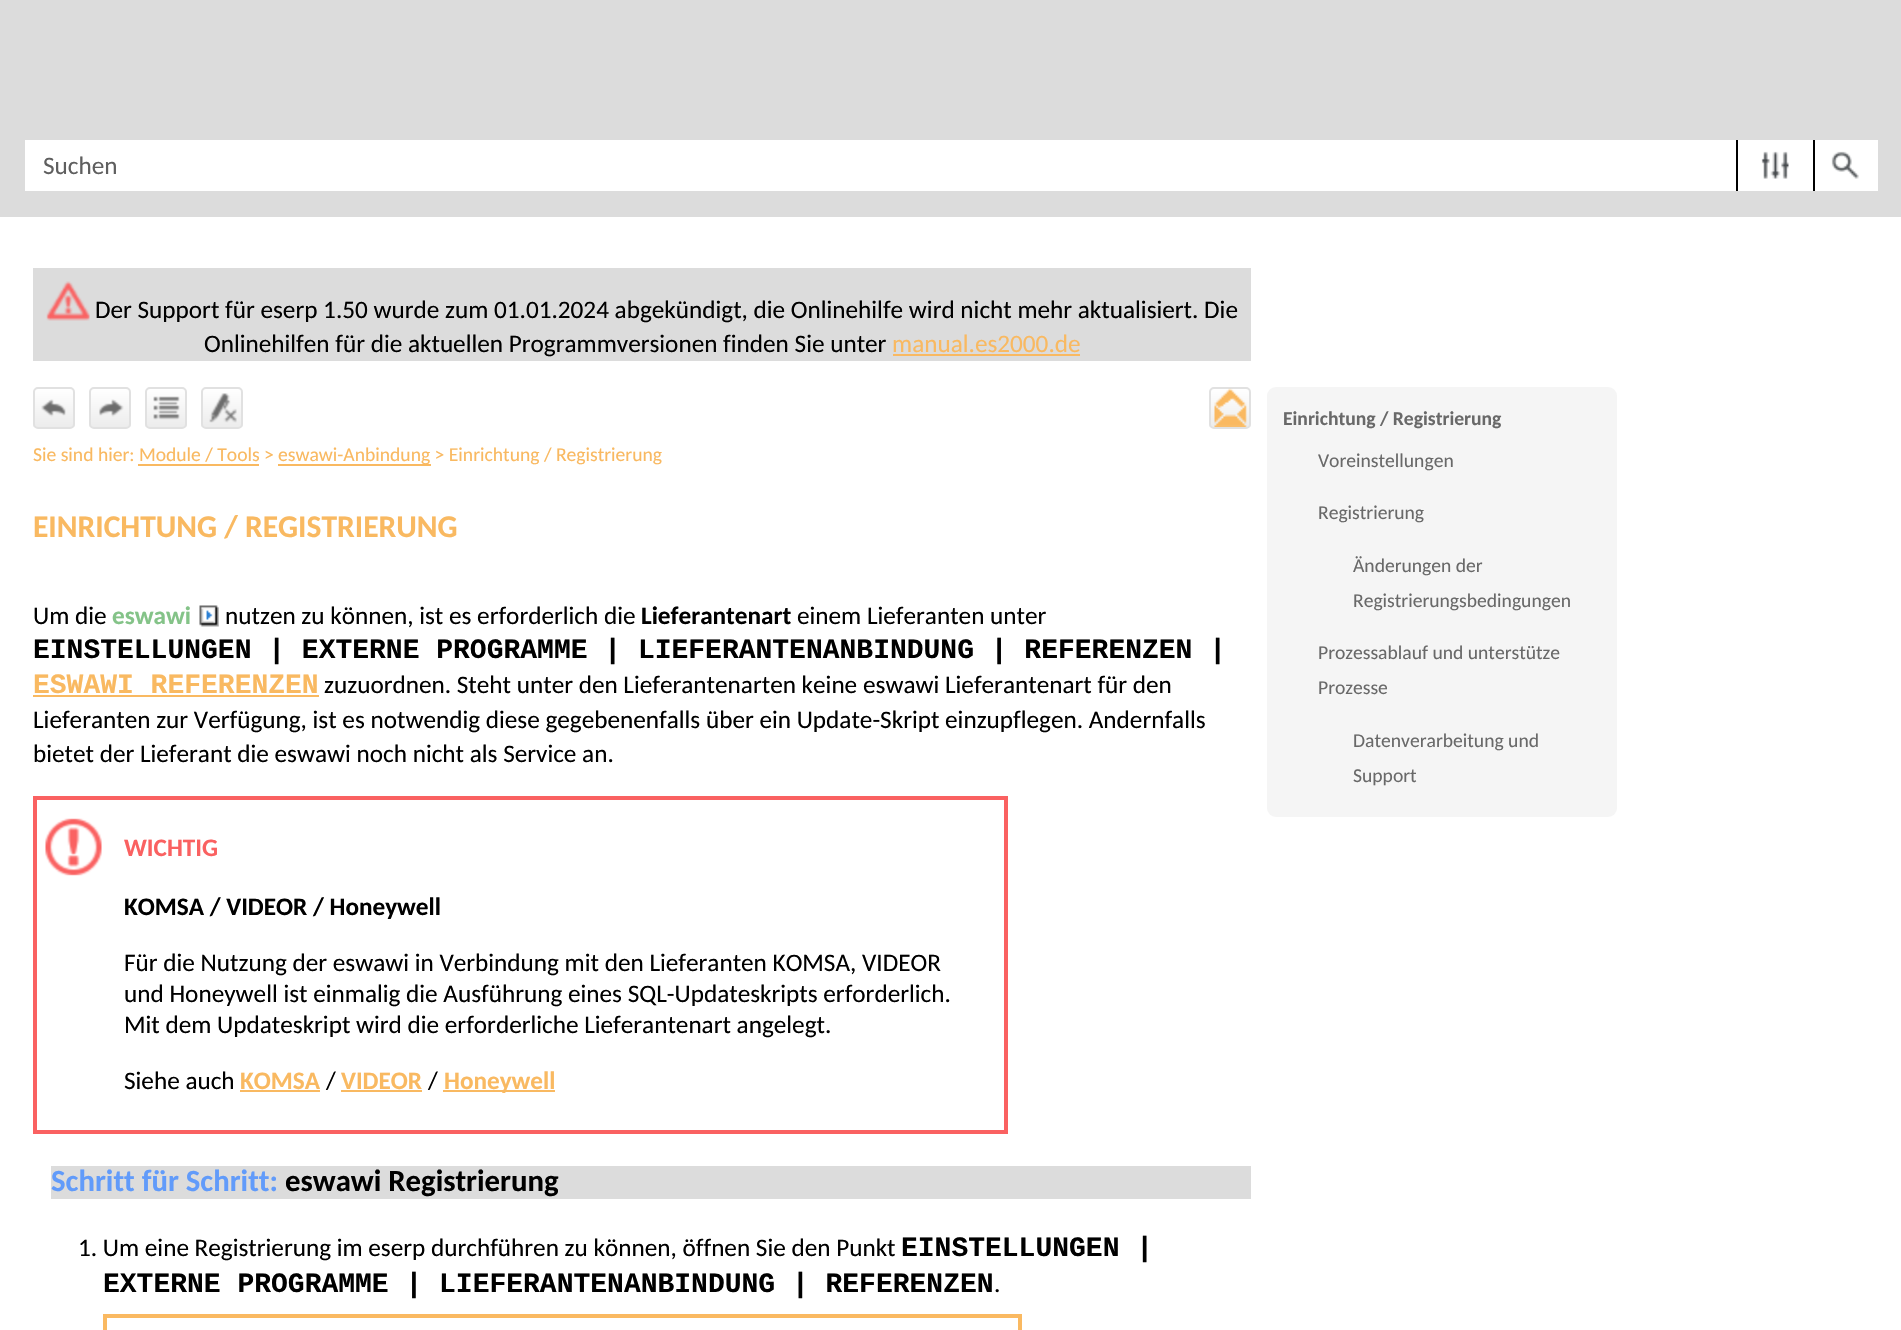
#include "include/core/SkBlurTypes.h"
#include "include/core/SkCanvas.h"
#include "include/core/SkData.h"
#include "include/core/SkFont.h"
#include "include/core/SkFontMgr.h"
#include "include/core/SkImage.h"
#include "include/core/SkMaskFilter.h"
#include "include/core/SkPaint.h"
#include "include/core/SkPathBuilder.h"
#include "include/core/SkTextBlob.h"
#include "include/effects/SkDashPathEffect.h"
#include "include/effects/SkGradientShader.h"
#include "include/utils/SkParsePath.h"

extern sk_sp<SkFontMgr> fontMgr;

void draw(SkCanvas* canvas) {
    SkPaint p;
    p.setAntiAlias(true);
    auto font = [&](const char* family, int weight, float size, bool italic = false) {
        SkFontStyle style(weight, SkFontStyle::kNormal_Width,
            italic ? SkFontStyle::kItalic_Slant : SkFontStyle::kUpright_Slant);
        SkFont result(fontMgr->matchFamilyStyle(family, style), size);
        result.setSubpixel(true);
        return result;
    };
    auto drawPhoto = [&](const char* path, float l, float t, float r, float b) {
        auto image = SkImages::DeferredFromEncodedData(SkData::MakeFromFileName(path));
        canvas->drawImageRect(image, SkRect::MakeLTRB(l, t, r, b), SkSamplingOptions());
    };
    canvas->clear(0xFFFFFFFF);
    p.setColor(0xFFDCDCDC);
    canvas->drawRect(SkRect::MakeLTRB(0, 0, 1901, 217), p);
    p.setColor(0xFFFFFFFF);
    canvas->drawRect(SkRect::MakeLTRB(25, 140, 1878, 191), p);
    auto font1 = font("Carlito", 400, 25.2f);
    p.setColor(0xFF5F5F5F);
    canvas->drawString("Suchen", 43, 174, font1, p);
    drawPhoto("media/1.png", 1761, 151, 1789, 179);
    p.setColor(0xFF000000);
    canvas->drawRect(SkRect::MakeLTRB(1813, 140, 1815, 191), p);
    canvas->drawRect(SkRect::MakeLTRB(1736, 140, 1738, 191), p);
    drawPhoto("media/2.png", 1831, 151, 1859, 179);
    p.setColor(0xFFDCDCDC);
    canvas->drawRect(SkRect::MakeLTRB(33, 268, 1251, 361), p);
    drawPhoto("media/3.png", 46, 281, 90, 321);
    p.setColor(0xFF000000);
    canvas->drawString("Der Support für eserp 1.50 wurde zum 01.01.2024 abgekündigt, die Onlinehilfe wird nicht mehr aktualisiert. Die", 95, 318, font1, p);
    canvas->drawString("Onlinehilfen für die aktuellen Programmversionen finden Sie unter", 204, 352, font1, p);
    p.setColor(0xFFF9B961);
    canvas->drawString("manual.es2000.de", 892, 352, font1, p);
    canvas->drawRect(SkRect::MakeLTRB(893, 354, 1080, 356), p);
    canvas->save();
    canvas->clipPath(SkPathBuilder().moveTo(38, 387).lineTo(70, 387).cubicTo(73, 387, 75, 389, 75, 392).lineTo(75, 424).cubicTo(75, 427, 73, 429, 70, 429).lineTo(38, 429).cubicTo(35, 429, 33, 427, 33, 424).lineTo(33, 392).cubicTo(33, 389, 35, 387, 38, 387).close().detach(), true);
    {
        const SkColor colors[] = {0xFFFFFFFF, 0xFFECECEC};
        const float stops[] = {0, 1};
        const SkPoint ends[] = {{54, 389}, {54, 427}};
        p.setShader(SkGradientShader::MakeLinear(ends, colors, stops, 2, SkTileMode::kClamp));
        p.setAlpha(255);
    }
    canvas->drawRect(SkRect::MakeLTRB(33, 389, 75, 427), p);
    canvas->restore();
    p.setStyle(SkPaint::kStroke_Style);
    p.setStrokeWidth(2);
    p.setShader(nullptr);
    p.setColor(0xFFE1E1E1);
    canvas->drawRoundRect(SkRect::MakeLTRB(34, 388, 74, 428), 4, 4, p);
    drawPhoto("media/4.png", 41, 399, 66, 417);
    canvas->save();
    canvas->clipPath(SkPathBuilder().moveTo(94, 387).lineTo(126, 387).cubicTo(129, 387, 131, 389, 131, 392).lineTo(131, 424).cubicTo(131, 427, 129, 429, 126, 429).lineTo(94, 429).cubicTo(91, 429, 89, 427, 89, 424).lineTo(89, 392).cubicTo(89, 389, 91, 387, 94, 387).close().detach(), true);
    p.setStyle(SkPaint::kFill_Style);
    {
        const SkColor colors[] = {0xFFFFFFFF, 0xFFECECEC};
        const float stops[] = {0, 1};
        const SkPoint ends[] = {{110, 389}, {110, 427}};
        p.setShader(SkGradientShader::MakeLinear(ends, colors, stops, 2, SkTileMode::kClamp));
        p.setAlpha(255);
    }
    canvas->drawRect(SkRect::MakeLTRB(89, 389, 131, 427), p);
    canvas->restore();
    p.setStyle(SkPaint::kStroke_Style);
    p.setShader(nullptr);
    p.setColor(0xFFE1E1E1);
    canvas->drawRoundRect(SkRect::MakeLTRB(90, 388, 130, 428), 4, 4, p);
    drawPhoto("media/5.png", 99, 399, 124, 417);
    canvas->save();
    canvas->clipPath(SkPathBuilder().moveTo(150, 387).lineTo(182, 387).cubicTo(185, 387, 187, 389, 187, 392).lineTo(187, 424).cubicTo(187, 427, 185, 429, 182, 429).lineTo(150, 429).cubicTo(147, 429, 145, 427, 145, 424).lineTo(145, 392).cubicTo(145, 389, 147, 387, 150, 387).close().detach(), true);
    p.setStyle(SkPaint::kFill_Style);
    {
        const SkColor colors[] = {0xFFFFFFFF, 0xFFECECEC};
        const float stops[] = {0, 1};
        const SkPoint ends[] = {{166, 389}, {166, 427}};
        p.setShader(SkGradientShader::MakeLinear(ends, colors, stops, 2, SkTileMode::kClamp));
        p.setAlpha(255);
    }
    canvas->drawRect(SkRect::MakeLTRB(145, 389, 187, 427), p);
    canvas->restore();
    p.setStyle(SkPaint::kStroke_Style);
    p.setShader(nullptr);
    p.setColor(0xFFE1E1E1);
    canvas->drawRoundRect(SkRect::MakeLTRB(146, 388, 186, 428), 4, 4, p);
    drawPhoto("media/6.png", 153, 396, 180, 420);
    canvas->save();
    canvas->clipPath(SkPathBuilder().moveTo(206, 387).lineTo(238, 387).cubicTo(241, 387, 243, 389, 243, 392).lineTo(243, 424).cubicTo(243, 427, 241, 429, 238, 429).lineTo(206, 429).cubicTo(203, 429, 201, 427, 201, 424).lineTo(201, 392).cubicTo(201, 389, 203, 387, 206, 387).close().detach(), true);
    p.setStyle(SkPaint::kFill_Style);
    {
        const SkColor colors[] = {0xFFFFFFFF, 0xFFECECEC};
        const float stops[] = {0, 1};
        const SkPoint ends[] = {{222, 389}, {222, 427}};
        p.setShader(SkGradientShader::MakeLinear(ends, colors, stops, 2, SkTileMode::kClamp));
        p.setAlpha(255);
    }
    canvas->drawRect(SkRect::MakeLTRB(201, 389, 243, 427), p);
    canvas->restore();
    p.setStyle(SkPaint::kStroke_Style);
    p.setShader(nullptr);
    p.setColor(0xFFE1E1E1);
    canvas->drawRoundRect(SkRect::MakeLTRB(202, 388, 242, 428), 4, 4, p);
    drawPhoto("media/7.png", 209, 393, 237, 423);
    canvas->save();
    canvas->clipPath(SkPathBuilder().moveTo(1214, 387).lineTo(1246, 387).cubicTo(1249, 387, 1251, 389, 1251, 392).lineTo(1251, 424).cubicTo(1251, 427, 1249, 429, 1246, 429).lineTo(1214, 429).cubicTo(1211, 429, 1209, 427, 1209, 424).lineTo(1209, 392).cubicTo(1209, 389, 1211, 387, 1214, 387).close().detach(), true);
    p.setStyle(SkPaint::kFill_Style);
    {
        const SkColor colors[] = {0xFFFFFFFF, 0xFFECECEC};
        const float stops[] = {0, 1};
        const SkPoint ends[] = {{1230, 389}, {1230, 427}};
        p.setShader(SkGradientShader::MakeLinear(ends, colors, stops, 2, SkTileMode::kClamp));
        p.setAlpha(255);
    }
    canvas->drawRect(SkRect::MakeLTRB(1209, 389, 1251, 427), p);
    canvas->restore();
    p.setStyle(SkPaint::kStroke_Style);
    p.setShader(nullptr);
    p.setColor(0xFFE1E1E1);
    canvas->drawRoundRect(SkRect::MakeLTRB(1210, 388, 1250, 428), 4, 4, p);
    drawPhoto("media/8.png", 1214, 388, 1247, 427);
    auto font2 = font("Carlito", 400, 19.6f);
    p.setStyle(SkPaint::kFill_Style);
    p.setColor(0xFFF9B961);
    canvas->drawString("Sie sind hier: Module / Tools >", 33, 461, font2, p);
    canvas->drawRect(SkRect::MakeLTRB(278, 464, 431, 466), p);
    canvas->drawString("eswawi-Anbindung > Einrichtung / Registrierung", 278, 461, font2, p);
    canvas->drawRect(SkRect::MakeLTRB(138, 464, 259, 466), p);
    auto font3 = font("Carlito", 700, 31.5f);
    canvas->drawString("EINRICHTUNG / REGISTRIERUNG", 33, 537, font3, p);
    p.setColor(0xFF000000);
    canvas->drawString("Um die", 33, 624, font1, p);
    auto font4 = font("Carlito", 700, 25.2f);
    p.setColor(0xFF84C388);
    canvas->drawString("eswawi", 112, 624, font4, p);
    drawPhoto("media/9.png", 199, 605, 219, 627);
    p.setColor(0xFF000000);
    canvas->drawString("nutzen zu können, ist es erforderlich die", 225, 624, font1, p);
    canvas->drawString("Lieferantenart", 641, 624, font4, p);
    canvas->drawString("einem Lieferanten unter", 797, 624, font1, p);
    auto font5 = font("Liberation Mono", 700, 28);
    canvas->drawString("EINSTELLUNGEN | EXTERNE PROGRAMME | LIEFERANTENANBINDUNG | REFERENZEN |", 33, 658, font5, p);
    p.setColor(0xFFF9B961);
    canvas->drawString("ESWAWI REFERENZEN", 33, 693, font5, p);
    canvas->drawRect(SkRect::MakeLTRB(33, 695, 319, 697), p);
    p.setColor(0xFF000000);
    {
        const struct { const char* s; float x, y; } items[] = {
            {"zuzuordnen. Steht unter den Lieferantenarten keine", 324, 693},
            {"eswawi Lieferantenart für den", 863, 693},
            {"Lieferanten zur Verfügung, ist es notwendig diese gegebenenfalls über ein Update-Skript einzupflegen. Andernfalls", 33, 728},
            {"bietet der Lieferant die eswawi noch nicht als Service an.", 33, 762},
        };
        for (auto [s, x, y] : items) {
            canvas->drawString(s, x, y, font1, p);
        }
    }
    drawPhoto("media/10.png", 45, 818, 102, 876);
    p.setStyle(SkPaint::kStroke_Style);
    p.setStrokeWidth(4);
    p.setColor(0xFFFA6161);
    canvas->drawRect(SkRect::MakeLTRB(35, 798, 1006, 1132), p);
    p.setStyle(SkPaint::kFill_Style);
    canvas->drawString("WICHTIG", 124, 856, font4, p);
    p.setColor(0xFF000000);
    canvas->drawString("KOMSA / VIDEOR / Honeywell", 124, 915, font4, p);
    {
        const struct { const char* s; float x, y; } items[] = {
            {"Für die Nutzung der eswawi in Verbindung mit den Lieferanten KOMSA, VIDEOR", 124, 971},
            {"und Honeywell ist einmalig die Ausführung eines SQL-Updateskripts erforderlich.", 124, 1002},
            {"Mit dem Updateskript wird die erforderliche Lieferantenart angelegt.", 124, 1033},
            {"Siehe auch", 124, 1089},
        };
        for (auto [s, x, y] : items) {
            canvas->drawString(s, x, y, font1, p);
        }
    }
    p.setColor(0xFFF9B961);
    canvas->drawString("KOMSA", 240, 1089, font4, p);
    canvas->drawRect(SkRect::MakeLTRB(240, 1090, 320, 1092), p);
    p.setColor(0xFF000000);
    canvas->drawString("/", 326, 1089, font1, p);
    p.setColor(0xFFF9B961);
    canvas->drawString("VIDEOR", 341, 1089, font4, p);
    canvas->drawRect(SkRect::MakeLTRB(341, 1090, 422, 1092), p);
    p.setColor(0xFF000000);
    canvas->drawString("/", 428, 1089, font1, p);
    p.setColor(0xFFF9B961);
    canvas->drawRect(SkRect::MakeLTRB(443, 1090, 555, 1092), p);
    canvas->drawString("Honeywell", 444, 1089, font4, p);
    p.setColor(0xFFDCDCDC);
    canvas->drawRect(SkRect::MakeLTRB(51, 1166, 1251, 1199), p);
    auto font6 = font("Carlito", 700, 30.75f);
    p.setColor(0xFF619BFA);
    canvas->drawString("Schritt für Schritt:", 51, 1191, font6, p);
    p.setColor(0xFF000000);
    canvas->drawString("eswawi Registrierung", 285, 1191, font6, p);
    canvas->drawString("EINSTELLUNGEN |", 901, 1256, font5, p);
    canvas->drawString("EXTERNE PROGRAMME | LIEFERANTENANBINDUNG | REFERENZEN", 103, 1292, font5, p);
    canvas->drawString(".", 994, 1292, font1, p);
    canvas->drawString("1. Um eine Registrierung im eserp durchführen zu können, öffnen Sie den Punkt", 78, 1256, font1, p);
    p.setStyle(SkPaint::kStroke_Style);
    p.setColor(0xFFFAB961);
    canvas->drawRect(SkRect::MakeLTRB(105, 1316, 1020, 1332), p);
    p.setStyle(SkPaint::kFill_Style);
    p.setColor(0xFFF5F5F5);
    canvas->drawRoundRect(SkRect::MakeLTRB(1267, 387, 1617, 817), 9, 9, p);
    auto font7 = font("Carlito", 700, 19.6f);
    p.setColor(0xFF696969);
    canvas->drawString("Einrichtung / Registrierung", 1283, 425, font7, p);
    {
        const struct { const char* s; float x, y; } items[] = {
            {"Voreinstellungen", 1318, 467},
            {"Registrierung", 1318, 519},
            {"Änderungen der", 1353, 572},
            {"Registrierungsbedingungen", 1353, 607},
            {"Prozessablauf und unterstütze", 1318, 659},
            {"Prozesse", 1318, 694},
            {"Datenverarbeitung und", 1353, 747},
            {"Support", 1353, 782},
        };
        for (auto [s, x, y] : items) {
            canvas->drawString(s, x, y, font2, p);
        }
    }
}
